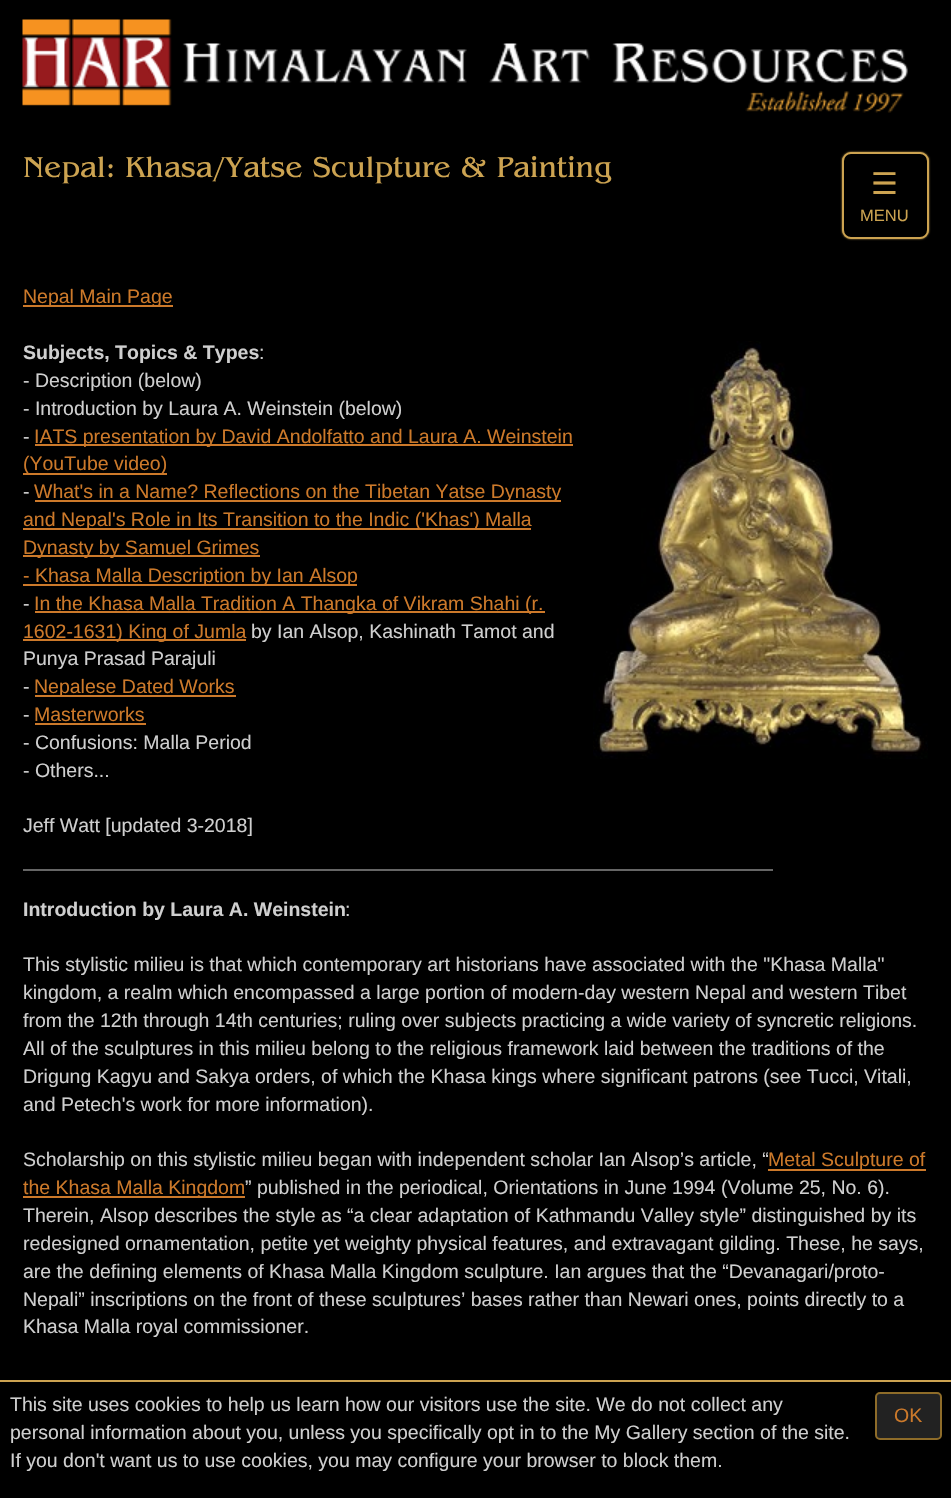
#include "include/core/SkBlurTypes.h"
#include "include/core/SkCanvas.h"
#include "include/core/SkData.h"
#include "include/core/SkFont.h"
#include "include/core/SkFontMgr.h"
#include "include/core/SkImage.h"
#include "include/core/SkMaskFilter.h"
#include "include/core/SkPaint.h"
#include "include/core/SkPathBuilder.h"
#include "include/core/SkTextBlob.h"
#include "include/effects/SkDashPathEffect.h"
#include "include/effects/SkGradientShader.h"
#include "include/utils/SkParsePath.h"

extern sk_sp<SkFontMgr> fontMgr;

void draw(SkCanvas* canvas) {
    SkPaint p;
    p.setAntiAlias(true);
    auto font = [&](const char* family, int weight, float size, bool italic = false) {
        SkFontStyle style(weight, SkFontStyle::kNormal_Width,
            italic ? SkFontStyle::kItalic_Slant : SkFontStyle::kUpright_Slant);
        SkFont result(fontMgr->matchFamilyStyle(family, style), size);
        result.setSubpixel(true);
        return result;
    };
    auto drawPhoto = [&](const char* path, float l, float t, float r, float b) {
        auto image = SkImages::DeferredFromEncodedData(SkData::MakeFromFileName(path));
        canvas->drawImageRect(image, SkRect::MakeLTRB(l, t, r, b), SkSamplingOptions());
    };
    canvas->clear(0xFF000000);
    drawPhoto("media/1.png", 22, 19, 908, 113);
    auto font1 = font("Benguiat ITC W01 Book", 400, 30);
    p.setColor(0xFFCCA351);
    canvas->drawString("Nepal: Khasa/Yatse Sculpture & Painting", 23, 177, font1, p);
    p.setMaskFilter(SkMaskFilter::MakeBlur(kNormal_SkBlurStyle, 1));
    canvas->drawRoundRect(SkRect::MakeLTRB(842, 152, 929, 239), 9, 9, p);
    p.setMaskFilter(nullptr);
    p.setColor(0xFF000000);
    canvas->drawRoundRect(SkRect::MakeLTRB(843, 153, 928, 238), 8, 8, p);
    p.setStyle(SkPaint::kStroke_Style);
    p.setStrokeWidth(2);
    p.setColor(0xFFCCA351);
    canvas->drawRoundRect(SkRect::MakeLTRB(843, 153, 928, 238), 8, 8, p);
    auto font2 = font("DejaVu Sans", 400, 30);
    p.setStyle(SkPaint::kFill_Style);
    canvas->drawString("☰", 871, 194, font2, p);
    auto font3 = font("Liberation Sans", 400, 16.5f);
    canvas->drawString("MENU", 860, 221, font3, p);
    p.setColor(0xFFCC792A);
    canvas->drawRect(SkRect::MakeLTRB(23, 305, 173, 307), p);
    auto font4 = font("Liberation Sans", 400, 19.5f);
    canvas->drawString("Nepal Main Page", 23, 303, font4, p);
    auto font5 = font("Liberation Sans", 700, 19.5f);
    p.setColor(0xFFCFCFCF);
    canvas->drawString("Subjects, Topics & Types", 23, 359, font5, p);
    canvas->drawString(":", 259, 359, font4, p);
    drawPhoto("media/2.png", 593, 341, 928, 759);
    {
        const struct { const char* s; float x, y; } items[] = {
            {"- Description (below)", 23, 387},
            {"- Introduction by Laura A. Weinstein (below)", 23, 415},
            {"-", 23, 443},
        };
        for (auto [s, x, y] : items) {
            canvas->drawString(s, x, y, font4, p);
        }
    }
    p.setColor(0xFFCC792A);
    canvas->drawRect(SkRect::MakeLTRB(35, 444, 573, 446), p);
    canvas->drawString("IATS presentation by David Andolfatto and Laura A. Weinstein", 34, 443, font4, p);
    canvas->drawRect(SkRect::MakeLTRB(23, 473, 167, 475), p);
    canvas->drawString("(YouTube video)", 23, 470, font4, p);
    p.setColor(0xFFCFCFCF);
    canvas->drawString("-", 23, 498, font4, p);
    p.setColor(0xFFCC792A);
    canvas->drawRect(SkRect::MakeLTRB(35, 500, 561, 502), p);
    canvas->drawString("What's in a Name? Reflections on the Tibetan Yatse Dynasty", 34, 498, font4, p);
    canvas->drawRect(SkRect::MakeLTRB(23, 528, 531, 530), p);
    canvas->drawString("and Nepal's Role in Its Transition to the Indic ('Khas') Malla", 23, 526, font4, p);
    canvas->drawRect(SkRect::MakeLTRB(23, 555, 260, 557), p);
    canvas->drawString("Dynasty by Samuel Grimes", 23, 554, font4, p);
    canvas->drawRect(SkRect::MakeLTRB(23, 584, 357, 586), p);
    canvas->drawString("- Khasa Malla Description by Ian Alsop", 23, 582, font4, p);
    p.setColor(0xFFCFCFCF);
    canvas->drawString("-", 23, 610, font4, p);
    p.setColor(0xFFCC792A);
    canvas->drawRect(SkRect::MakeLTRB(35, 611, 545, 613), p);
    canvas->drawString("In the Khasa Malla Tradition A Thangka of Vikram Shahi (r.", 34, 610, font4, p);
    canvas->drawRect(SkRect::MakeLTRB(23, 639, 246, 641), p);
    canvas->drawString("1602-1631) King of Jumla", 23, 638, font4, p);
    p.setColor(0xFFCFCFCF);
    {
        const struct { const char* s; float x, y; } items[] = {
            {"by Ian Alsop, Kashinath Tamot and", 251, 638},
            {"Punya Prasad Parajuli", 23, 665},
            {"-", 23, 693},
        };
        for (auto [s, x, y] : items) {
            canvas->drawString(s, x, y, font4, p);
        }
    }
    p.setColor(0xFFCC792A);
    canvas->drawRect(SkRect::MakeLTRB(35, 695, 236, 697), p);
    canvas->drawString("Nepalese Dated Works", 34, 693, font4, p);
    p.setColor(0xFFCFCFCF);
    canvas->drawString("-", 23, 721, font4, p);
    p.setColor(0xFFCC792A);
    canvas->drawString("Masterworks", 34, 721, font4, p);
    canvas->drawRect(SkRect::MakeLTRB(35, 723, 146, 725), p);
    p.setColor(0xFFCFCFCF);
    {
        const struct { const char* s; float x, y; } items[] = {
            {"- Confusions: Malla Period", 23, 749},
            {"- Others...", 23, 777},
            {"Jeff Watt [updated 3-2018]", 23, 832},
        };
        for (auto [s, x, y] : items) {
            canvas->drawString(s, x, y, font4, p);
        }
    }
    p.setColor(0xFF666666);
    canvas->drawRect(SkRect::MakeLTRB(23, 869, 773, 871), p);
    p.setColor(0xFFCFCFCF);
    canvas->drawString("Introduction by Laura A. Weinstein", 23, 916, font5, p);
    {
        const struct { const char* s; float x, y; } items[] = {
            {":", 345, 916},
            {"This stylistic milieu is that which contemporary art historians have associated with the \"Khasa Malla\"", 23, 971},
            {"kingdom, a realm which encompassed a large portion of modern-day western Nepal and western Tibet", 23, 999},
            {"from the 12th through 14th centuries; ruling over subjects practicing a wide variety of syncretic religions.", 23, 1027},
            {"All of the sculptures in this milieu belong to the religious framework laid between the traditions of the", 23, 1055},
            {"Drigung Kagyu and Sakya orders, of which the Khasa kings where significant patrons (see Tucci, Vitali,", 23, 1083},
            {"and Petech's work for more information).", 23, 1111},
            {"Scholarship on this stylistic milieu began with independent scholar Ian Alsop’s article, “", 23, 1166},
        };
        for (auto [s, x, y] : items) {
            canvas->drawString(s, x, y, font4, p);
        }
    }
    p.setColor(0xFFCC792A);
    canvas->drawRect(SkRect::MakeLTRB(768, 1169, 926, 1171), p);
    canvas->drawString("Metal Sculpture of", 768, 1166, font4, p);
    canvas->drawRect(SkRect::MakeLTRB(23, 1196, 245, 1198), p);
    canvas->drawString("the Khasa Malla Kingdom", 23, 1194, font4, p);
    p.setColor(0xFFCFCFCF);
    {
        const struct { const char* s; float x, y; } items[] = {
            {"” published in the periodical, Orientations in June 1994 (Volume 25, No. 6).", 245, 1194},
            {"Therein, Alsop describes the style as “a clear adaptation of Kathmandu Valley style” distinguished by its", 23, 1222},
            {"redesigned ornamentation, petite yet weighty physical features, and extravagant gilding. These, he says,", 23, 1250},
            {"are the defining elements of Khasa Malla Kingdom sculpture. Ian argues that the “Devanagari/proto-", 23, 1278},
            {"Nepali” inscriptions on the front of these sculptures’ bases rather than Newari ones, points directly to a", 23, 1306},
            {"Khasa Malla royal commissioner.", 23, 1333},
        };
        for (auto [s, x, y] : items) {
            canvas->drawString(s, x, y, font4, p);
        }
    }
    p.setColor(0xFFCCA351);
    canvas->drawRect(SkRect::MakeLTRB(0, 1380, 951, 1382), p);
    p.setColor(0xFFCFCFCF);
    {
        const struct { const char* s; float x, y; } items[] = {
            {"This site uses cookies to help us learn how our visitors use the site. We do not collect any", 10, 1411},
            {"personal information about you, unless you specifically opt in to the My Gallery section of the site.", 10, 1439},
            {"If you don't want us to use cookies, you may configure your browser to block them.", 10, 1467},
        };
        for (auto [s, x, y] : items) {
            canvas->drawString(s, x, y, font4, p);
        }
    }
    p.setColor(0xFF222222);
    canvas->drawRoundRect(SkRect::MakeLTRB(876, 1393, 941, 1439), 4, 4, p);
    p.setStyle(SkPaint::kStroke_Style);
    p.setColor(0xFF8E6C29);
    canvas->drawRoundRect(SkRect::MakeLTRB(876, 1393, 941, 1439), 4, 4, p);
    p.setStyle(SkPaint::kFill_Style);
    p.setColor(0xFFCC792A);
    canvas->drawString("OK", 894, 1422, font4, p);
}
